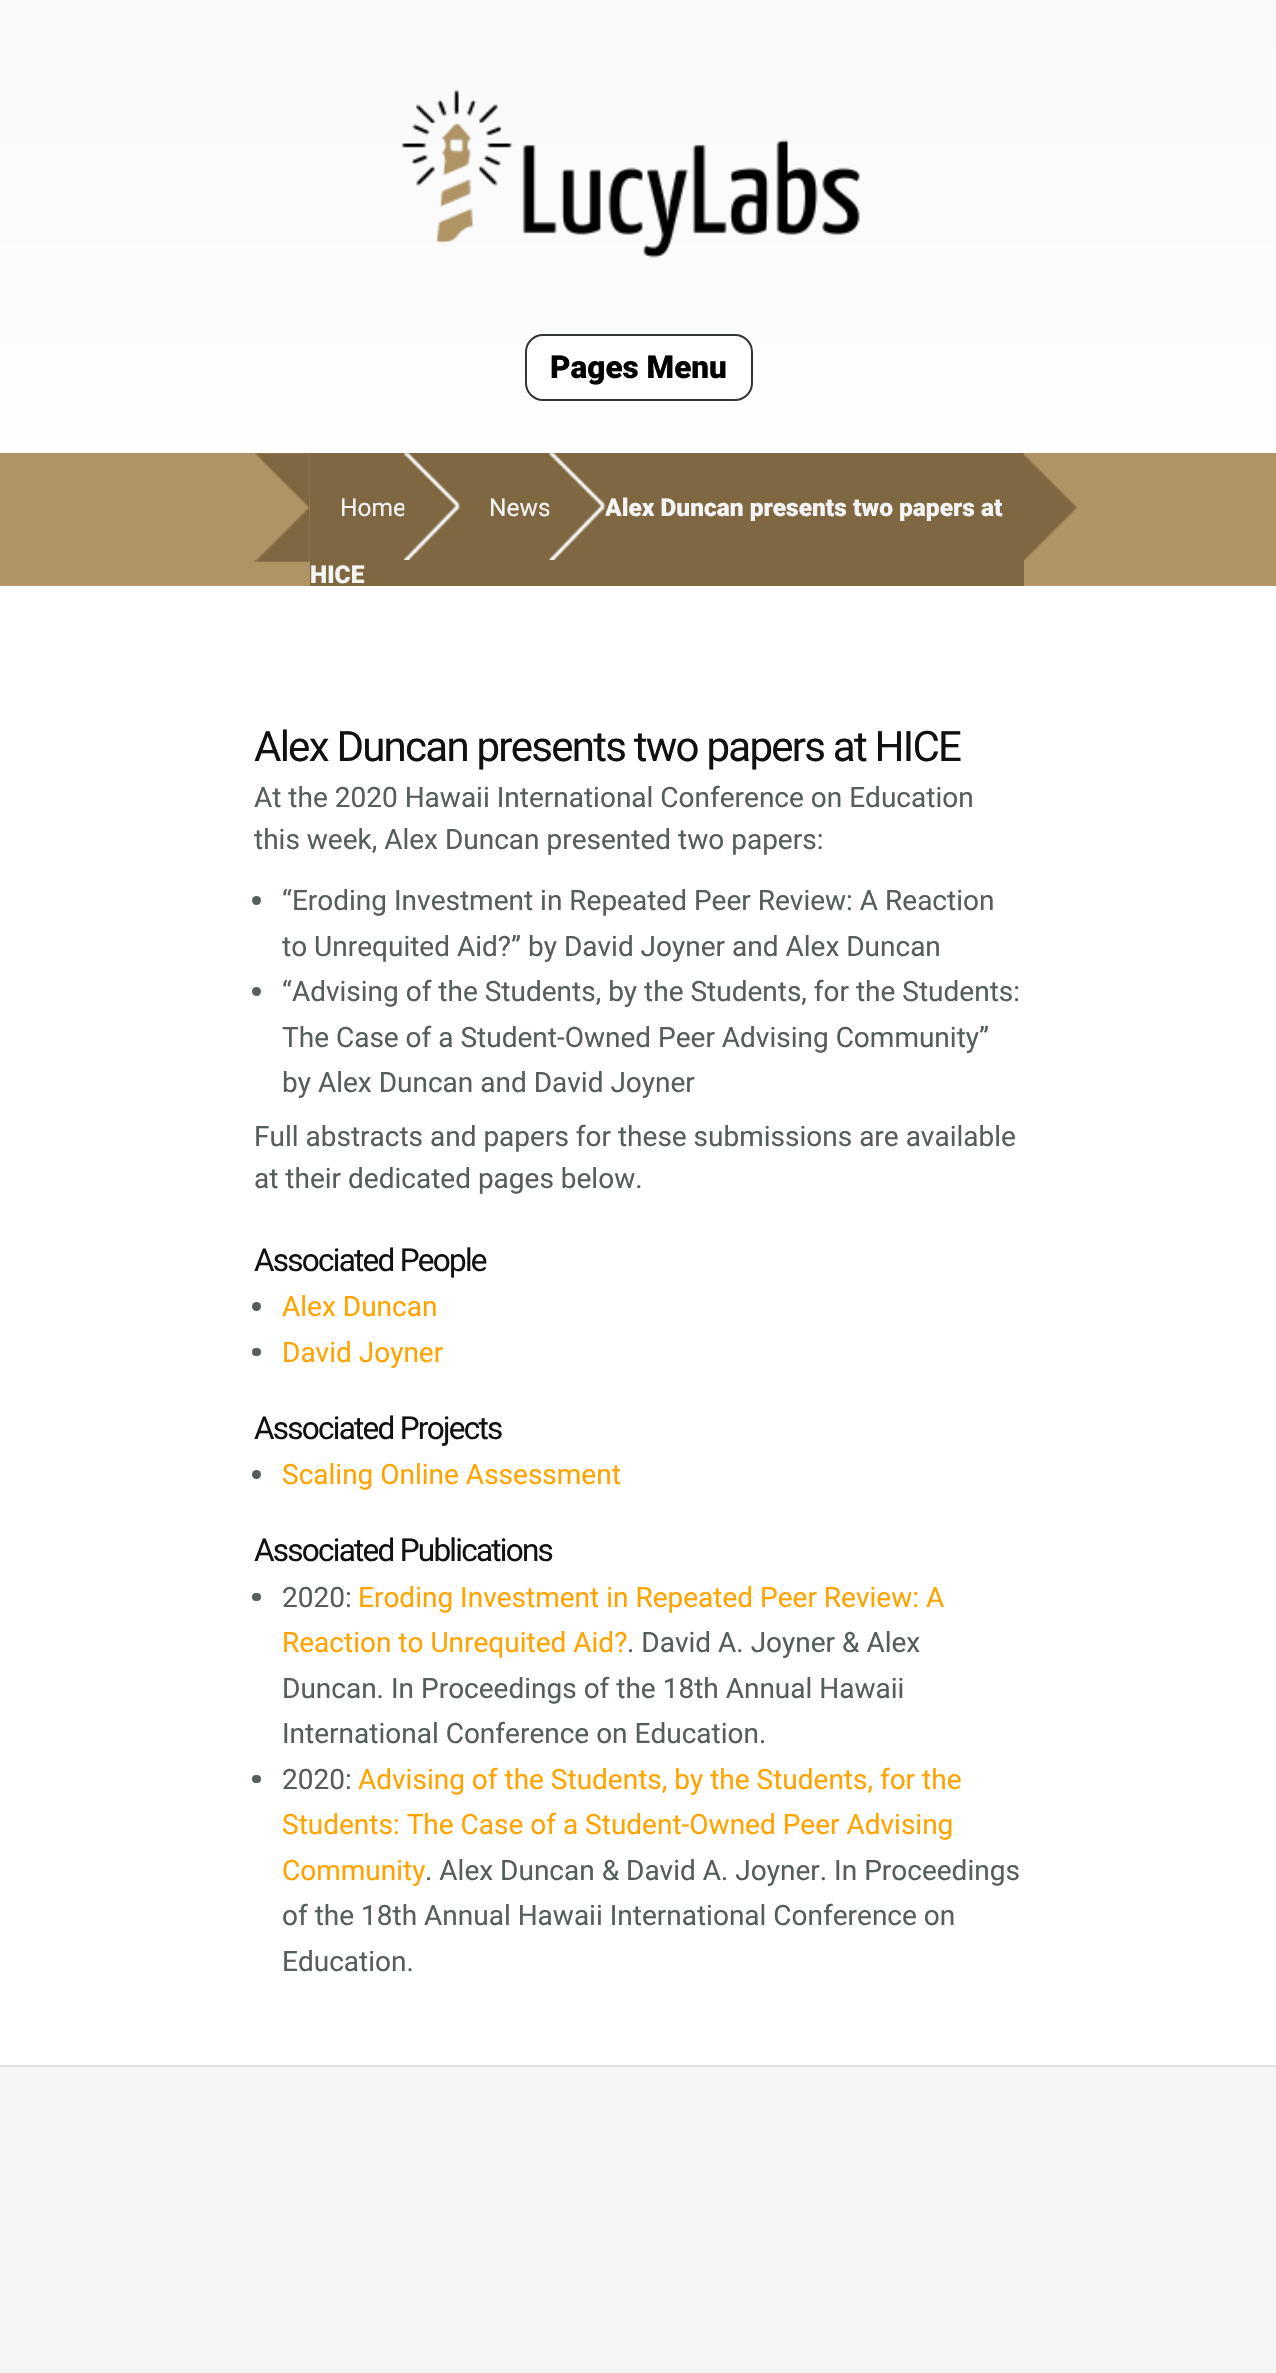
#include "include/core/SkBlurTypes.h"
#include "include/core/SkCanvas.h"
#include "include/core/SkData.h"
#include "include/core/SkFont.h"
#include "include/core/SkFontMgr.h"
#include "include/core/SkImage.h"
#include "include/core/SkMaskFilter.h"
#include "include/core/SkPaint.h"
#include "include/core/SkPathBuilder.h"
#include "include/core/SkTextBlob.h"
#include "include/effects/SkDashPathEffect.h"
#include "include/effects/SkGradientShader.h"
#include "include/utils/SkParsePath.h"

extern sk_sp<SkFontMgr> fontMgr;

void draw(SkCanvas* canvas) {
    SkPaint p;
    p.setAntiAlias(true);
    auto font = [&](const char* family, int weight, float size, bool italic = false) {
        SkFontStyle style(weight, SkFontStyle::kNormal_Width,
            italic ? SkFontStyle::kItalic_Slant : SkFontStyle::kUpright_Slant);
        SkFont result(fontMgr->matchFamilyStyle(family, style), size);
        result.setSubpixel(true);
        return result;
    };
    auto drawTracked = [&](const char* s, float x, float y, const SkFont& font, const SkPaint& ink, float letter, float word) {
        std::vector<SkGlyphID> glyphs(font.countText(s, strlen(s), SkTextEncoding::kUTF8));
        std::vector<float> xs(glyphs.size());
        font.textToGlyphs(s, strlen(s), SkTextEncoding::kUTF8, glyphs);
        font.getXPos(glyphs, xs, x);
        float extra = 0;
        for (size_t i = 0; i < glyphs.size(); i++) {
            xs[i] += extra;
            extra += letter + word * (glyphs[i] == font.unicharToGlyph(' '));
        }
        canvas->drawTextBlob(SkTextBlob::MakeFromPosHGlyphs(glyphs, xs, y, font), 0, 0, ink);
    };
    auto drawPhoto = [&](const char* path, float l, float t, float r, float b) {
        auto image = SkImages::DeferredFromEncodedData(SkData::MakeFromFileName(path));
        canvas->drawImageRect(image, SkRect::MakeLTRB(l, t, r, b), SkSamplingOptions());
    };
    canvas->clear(0xFFF5F5F5);
    {
        const SkColor colors[] = {0xFFF9F9F9, 0xFFFFFFFF};
        const float stops[] = {0, 1};
        const SkPoint ends[] = {{639, 0}, {639, 586}};
        p.setShader(SkGradientShader::MakeLinear(ends, colors, stops, 2, SkTileMode::kClamp));
        p.setAlpha(255);
    }
    canvas->drawRect(SkRect::MakeLTRB(0, 0, 1276, 453), p);
    drawPhoto("media/1.png", 401, 89, 860, 258);
    p.setShader(nullptr);
    p.setColor(0xFFFFFFFF);
    canvas->drawRoundRect(SkRect::MakeLTRB(526, 335, 752, 400), 17, 17, p);
    p.setStyle(SkPaint::kStroke_Style);
    p.setStrokeWidth(2);
    p.setColor(0xFF303733);
    canvas->drawRoundRect(SkRect::MakeLTRB(526, 335, 752, 400), 17, 17, p);
    auto font1 = font("Roboto", 900, 31.5f);
    p.setStyle(SkPaint::kFill_Style);
    p.setColor(0xFF000000);
    canvas->drawString("Pages Menu", 550, 378, font1, p);
    p.setColor(0xFFB09465);
    canvas->drawRect(SkRect::MakeLTRB(0, 453, 1276, 586), p);
    p.setColor(0xFF7E6741);
    canvas->drawRect(SkRect::MakeLTRB(310, 453, 1024, 586), p);
    drawPhoto("media/2.png", 253, 453, 310, 562);
    auto font2 = font("Roboto", 400, 24.5f);
    p.setColor(0xFFF5F5F5);
    canvas->drawString("Home", 340, 516, font2, p);
    drawPhoto("media/3.png", 404, 453, 461, 560);
    canvas->drawString("News", 489, 516, font2, p);
    auto font3 = font("Roboto", 900, 24.5f);
    canvas->drawString("Alex Duncan presents two papers at", 605, 516, font3, p);
    drawPhoto("media/4.png", 549, 453, 606, 560);
    drawPhoto("media/5.png", 1023, 453, 1077, 560);
    canvas->drawString("HICE", 310, 583, font3, p);
    p.setColor(0xFFFFFFFF);
    canvas->drawRect(SkRect::MakeLTRB(0, 586, 1276, 2065), p);
    p.setColor(0xFFE0DDDD);
    canvas->drawRect(SkRect::MakeLTRB(0, 2065, 1276, 2067), p);
    auto font4 = font("Roboto", 400, 42);
    p.setColor(0xFF111111);
    drawTracked("Alex Duncan presents two papers at HICE", 254, 761, font4, p, -1.75f, 0);
    auto font5 = font("Roboto", 400, 28);
    p.setColor(0xFF555E58);
    canvas->drawString("At the 2020 Hawaii International Conference on Education", 254, 807, font5, p);
    canvas->drawString("this week, Alex Duncan presented two papers:", 254, 849, font5, p);
    canvas->drawCircle(256.5f, 900.5f, 4.5f, p);
    canvas->drawString("“Eroding Investment in Repeated Peer Review: A Reaction", 282, 910, font5, p);
    canvas->drawString("to Unrequited Aid?” by David Joyner and Alex Duncan", 282, 956, font5, p);
    canvas->drawCircle(256.5f, 991.5f, 4.5f, p);
    {
        const struct { const char* s; float x, y; } items[] = {
            {"“Advising of the Students, by the Students, for the Students:", 282, 1001},
            {"The Case of a Student-Owned Peer Advising Community”", 282, 1047},
            {"by Alex Duncan and David Joyner", 282, 1092},
            {"Full abstracts and papers for these submissions are available", 254, 1146},
            {"at their dedicated pages below.", 254, 1188},
        };
        for (auto [s, x, y] : items) {
            canvas->drawString(s, x, y, font5, p);
        }
    }
    auto font6 = font("Roboto", 400, 31.5f);
    p.setColor(0xFF111111);
    drawTracked("Associated People", 254, 1271, font6, p, -1.75f, 0);
    p.setColor(0xFF555E58);
    canvas->drawCircle(256.5f, 1306.5f, 4.5f, p);
    p.setColor(0xFFFFA300);
    canvas->drawString("Alex Duncan", 282, 1316, font5, p);
    p.setColor(0xFF555E58);
    canvas->drawRoundRect(SkRect::MakeLTRB(252, 1348, 261, 1356), 4, 4, p);
    p.setColor(0xFFFFA300);
    canvas->drawString("David Joyner", 282, 1362, font5, p);
    p.setColor(0xFF111111);
    drawTracked("Associated Projects", 254, 1439, font6, p, -1.75f, 0);
    p.setColor(0xFF555E58);
    canvas->drawCircle(256.5f, 1474.5f, 4.5f, p);
    p.setColor(0xFFFFA300);
    canvas->drawString("Scaling Online Assessment", 282, 1484, font5, p);
    p.setColor(0xFF111111);
    drawTracked("Associated Publications", 254, 1561, font6, p, -1.75f, 0);
    p.setColor(0xFF555E58);
    canvas->drawRoundRect(SkRect::MakeLTRB(252, 1593, 261, 1601), 4, 4, p);
    canvas->drawString("2020:", 282, 1607, font5, p);
    p.setColor(0xFFFFA300);
    canvas->drawString("Eroding Investment in Repeated Peer Review: A", 358, 1607, font5, p);
    canvas->drawString("Reaction to Unrequited Aid?", 282, 1652, font5, p);
    p.setColor(0xFF555E58);
    {
        const struct { const char* s; float x, y; } items[] = {
            {". David A. Joyner & Alex", 627, 1652},
            {"Duncan. In Proceedings of the 18th Annual Hawaii", 282, 1698},
            {"International Conference on Education.", 282, 1743},
        };
        for (auto [s, x, y] : items) {
            canvas->drawString(s, x, y, font5, p);
        }
    }
    canvas->drawRoundRect(SkRect::MakeLTRB(252, 1775, 261, 1783), 4, 4, p);
    canvas->drawString("2020:", 282, 1789, font5, p);
    p.setColor(0xFFFFA300);
    {
        const struct { const char* s; float x, y; } items[] = {
            {"Advising of the Students, by the Students, for the", 358, 1789},
            {"Students: The Case of a Student-Owned Peer Advising", 282, 1834},
            {"Community", 282, 1880},
        };
        for (auto [s, x, y] : items) {
            canvas->drawString(s, x, y, font5, p);
        }
    }
    p.setColor(0xFF555E58);
    {
        const struct { const char* s; float x, y; } items[] = {
            {". Alex Duncan & David A. Joyner. In Proceedings", 425, 1880},
            {"of the 18th Annual Hawaii International Conference on", 282, 1925},
            {"Education.", 282, 1971},
        };
        for (auto [s, x, y] : items) {
            canvas->drawString(s, x, y, font5, p);
        }
    }
}
